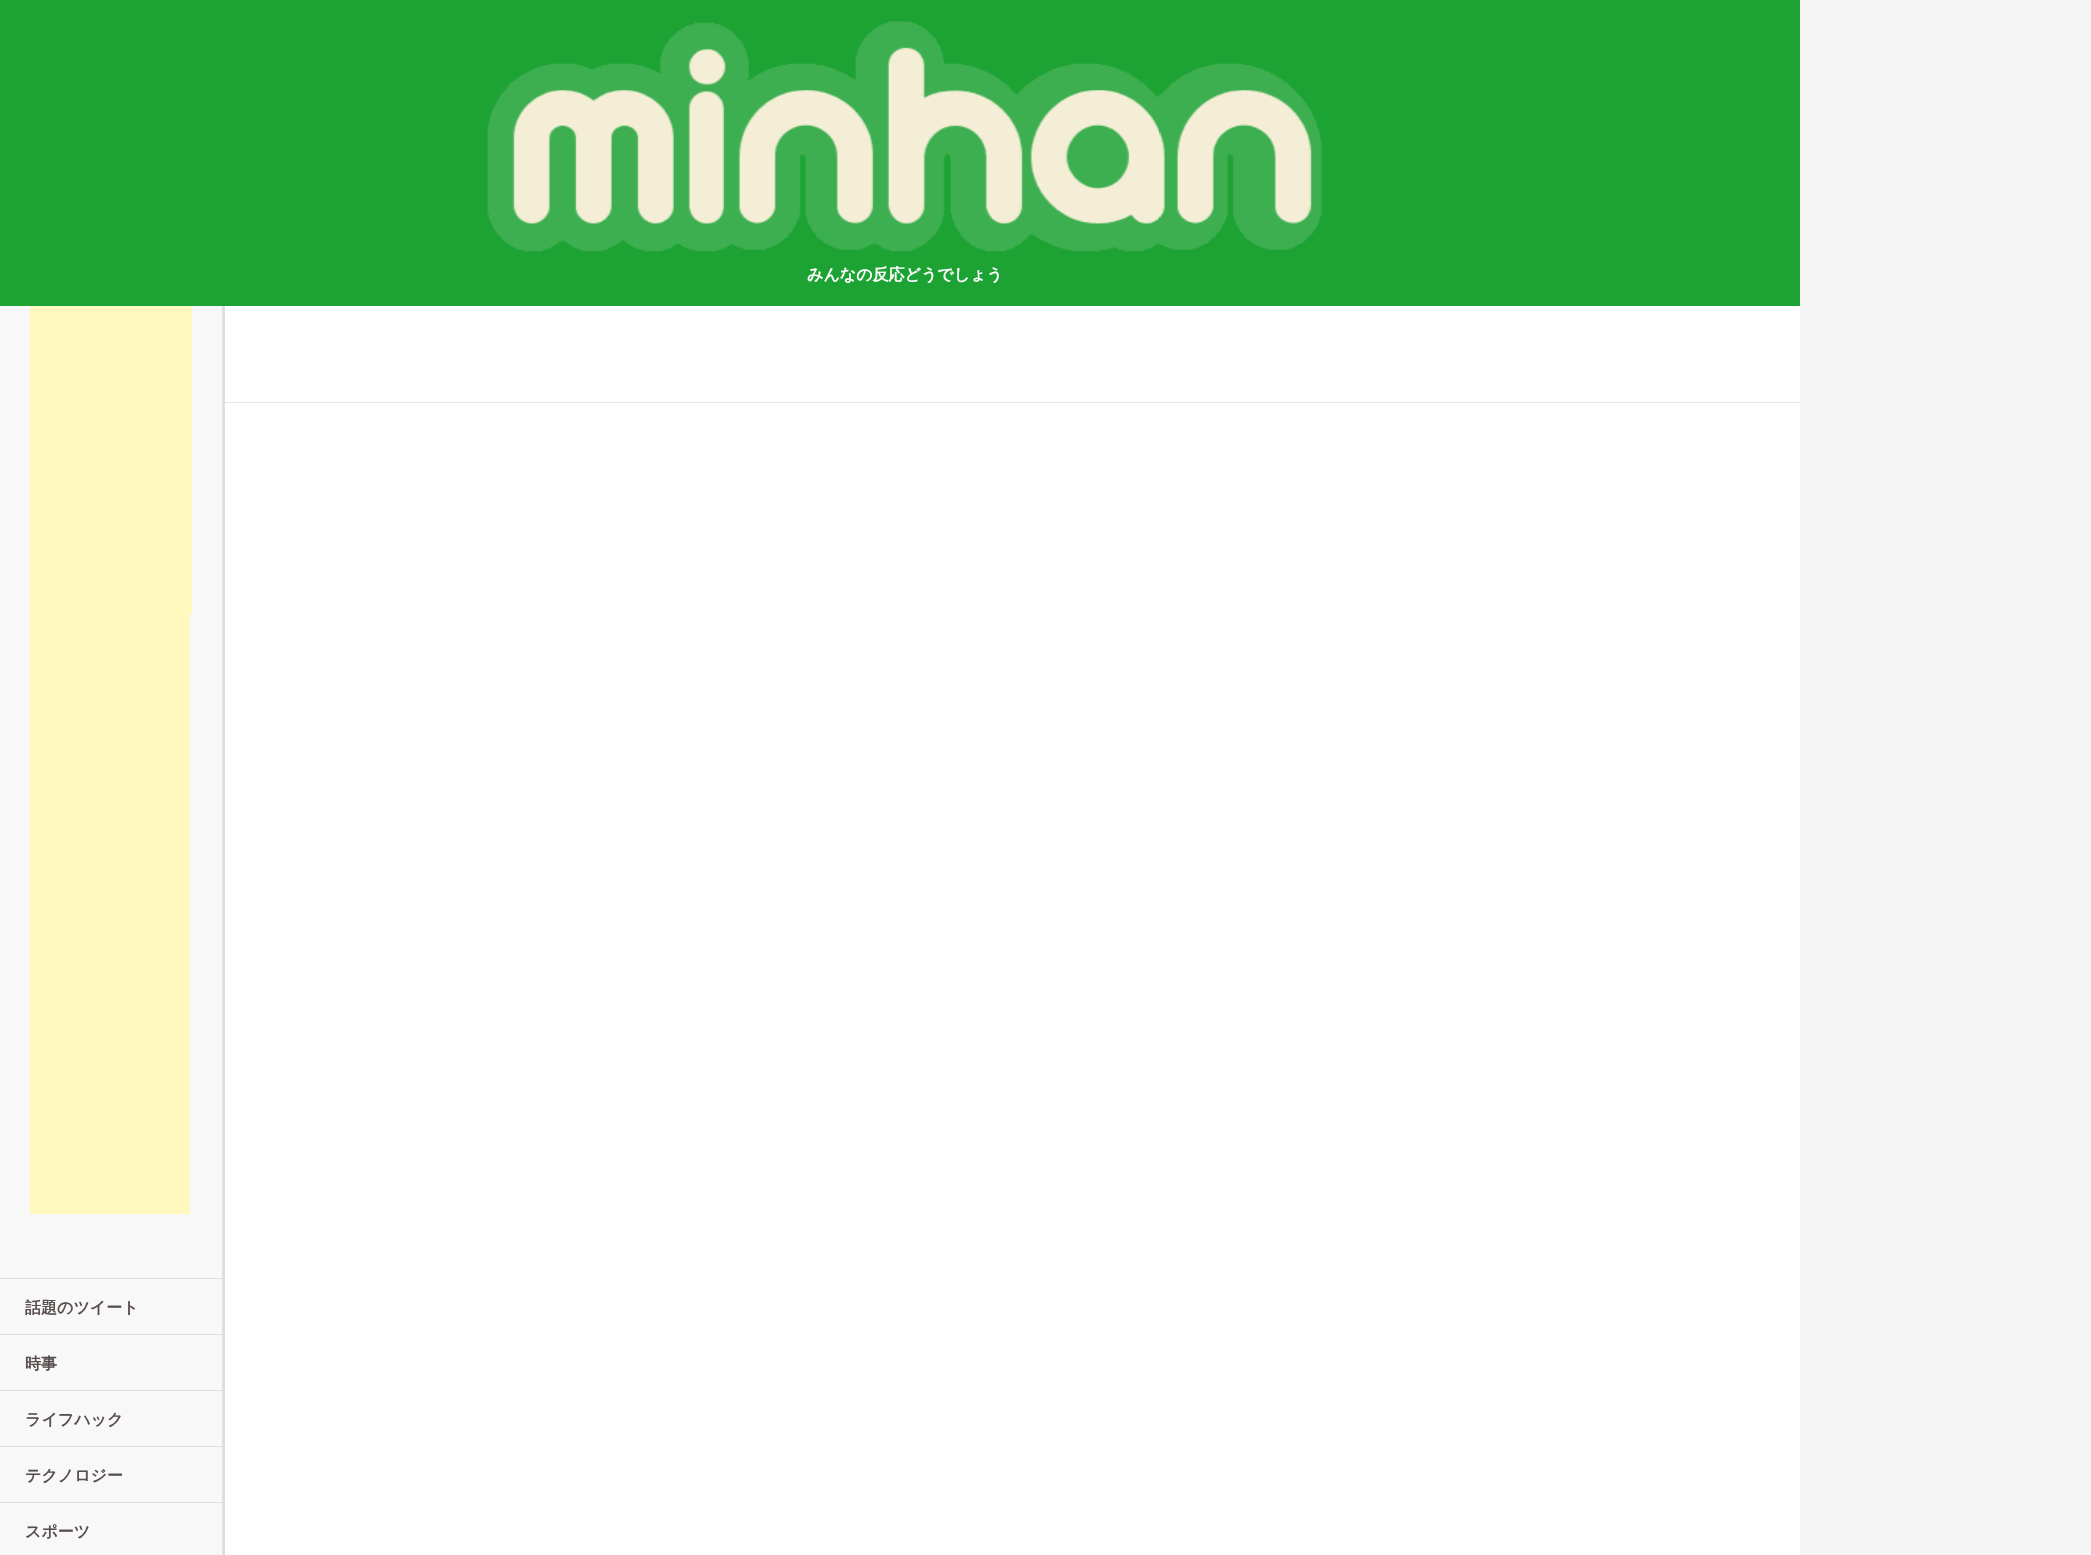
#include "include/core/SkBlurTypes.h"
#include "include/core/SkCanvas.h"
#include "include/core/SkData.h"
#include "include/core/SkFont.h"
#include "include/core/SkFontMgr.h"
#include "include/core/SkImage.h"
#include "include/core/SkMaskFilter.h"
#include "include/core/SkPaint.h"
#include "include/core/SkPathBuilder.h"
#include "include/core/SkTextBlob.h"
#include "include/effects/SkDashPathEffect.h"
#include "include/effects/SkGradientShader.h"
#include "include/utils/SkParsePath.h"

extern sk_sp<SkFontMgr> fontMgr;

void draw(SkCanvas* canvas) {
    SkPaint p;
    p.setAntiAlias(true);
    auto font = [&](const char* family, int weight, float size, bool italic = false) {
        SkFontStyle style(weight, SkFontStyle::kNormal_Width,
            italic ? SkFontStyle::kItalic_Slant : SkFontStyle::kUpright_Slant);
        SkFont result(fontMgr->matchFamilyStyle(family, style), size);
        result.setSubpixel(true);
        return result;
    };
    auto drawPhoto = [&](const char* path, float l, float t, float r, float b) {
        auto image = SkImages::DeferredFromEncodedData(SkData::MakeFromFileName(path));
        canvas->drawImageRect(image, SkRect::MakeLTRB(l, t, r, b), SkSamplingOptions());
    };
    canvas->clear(0xFFF5F5F5);
    p.setColor(0xFFFFFFFF);
    canvas->drawRect(SkRect::MakeLTRB(225, 306, 1800, 1555), p);
    p.setColor(0xFF1DA234);
    canvas->drawRect(SkRect::MakeLTRB(0, 0, 1800, 306), p);
    drawPhoto("media/1.png", 487, 21, 1322, 252);
    auto font1 = font("WenQuanYi Zen Hei", 700, 16);
    p.setColor(0xFFFFFFFF);
    canvas->drawString("みんなの反応どうでしょう", 807, 280, font1, p);
    {
        const struct { float l, t, r, b; SkColor color; } items[] = {
            {0, 306, 222, 1555, 0xFFF8F8F8},
            {222, 402, 1800, 403, 0xFFE6E6E6},
            {222, 306, 225, 1555, 0xFFDFDFDF},
            {30, 306, 192, 614, 0xFFFFF9C0},
            {30, 614, 190, 1214, 0xFFFFF9C0},
            {0, 1278, 222, 1279, 0xFFDFDFDF},
        };
        for (auto [l, t, r, b, color] : items) {
            p.setColor(color);
            canvas->drawRect(SkRect::MakeLTRB(l, t, r, b), p);
        }
    }
    p.setColor(0xFF594E4E);
    canvas->drawString("話題のツイート", 25, 1313, font1, p);
    p.setColor(0xFFDFDFDF);
    canvas->drawRect(SkRect::MakeLTRB(0, 1334, 222, 1335), p);
    p.setColor(0xFF594E4E);
    canvas->drawString("時事", 25, 1369, font1, p);
    p.setColor(0xFFDFDFDF);
    canvas->drawRect(SkRect::MakeLTRB(0, 1390, 222, 1391), p);
    p.setColor(0xFF594E4E);
    canvas->drawString("ライフハック", 25, 1425, font1, p);
    p.setColor(0xFFDFDFDF);
    canvas->drawRect(SkRect::MakeLTRB(0, 1446, 222, 1447), p);
    p.setColor(0xFF594E4E);
    canvas->drawString("テクノロジー", 25, 1481, font1, p);
    p.setColor(0xFFDFDFDF);
    canvas->drawRect(SkRect::MakeLTRB(0, 1502, 222, 1503), p);
    p.setColor(0xFF594E4E);
    canvas->drawString("スポーツ", 25, 1537, font1, p);
}
